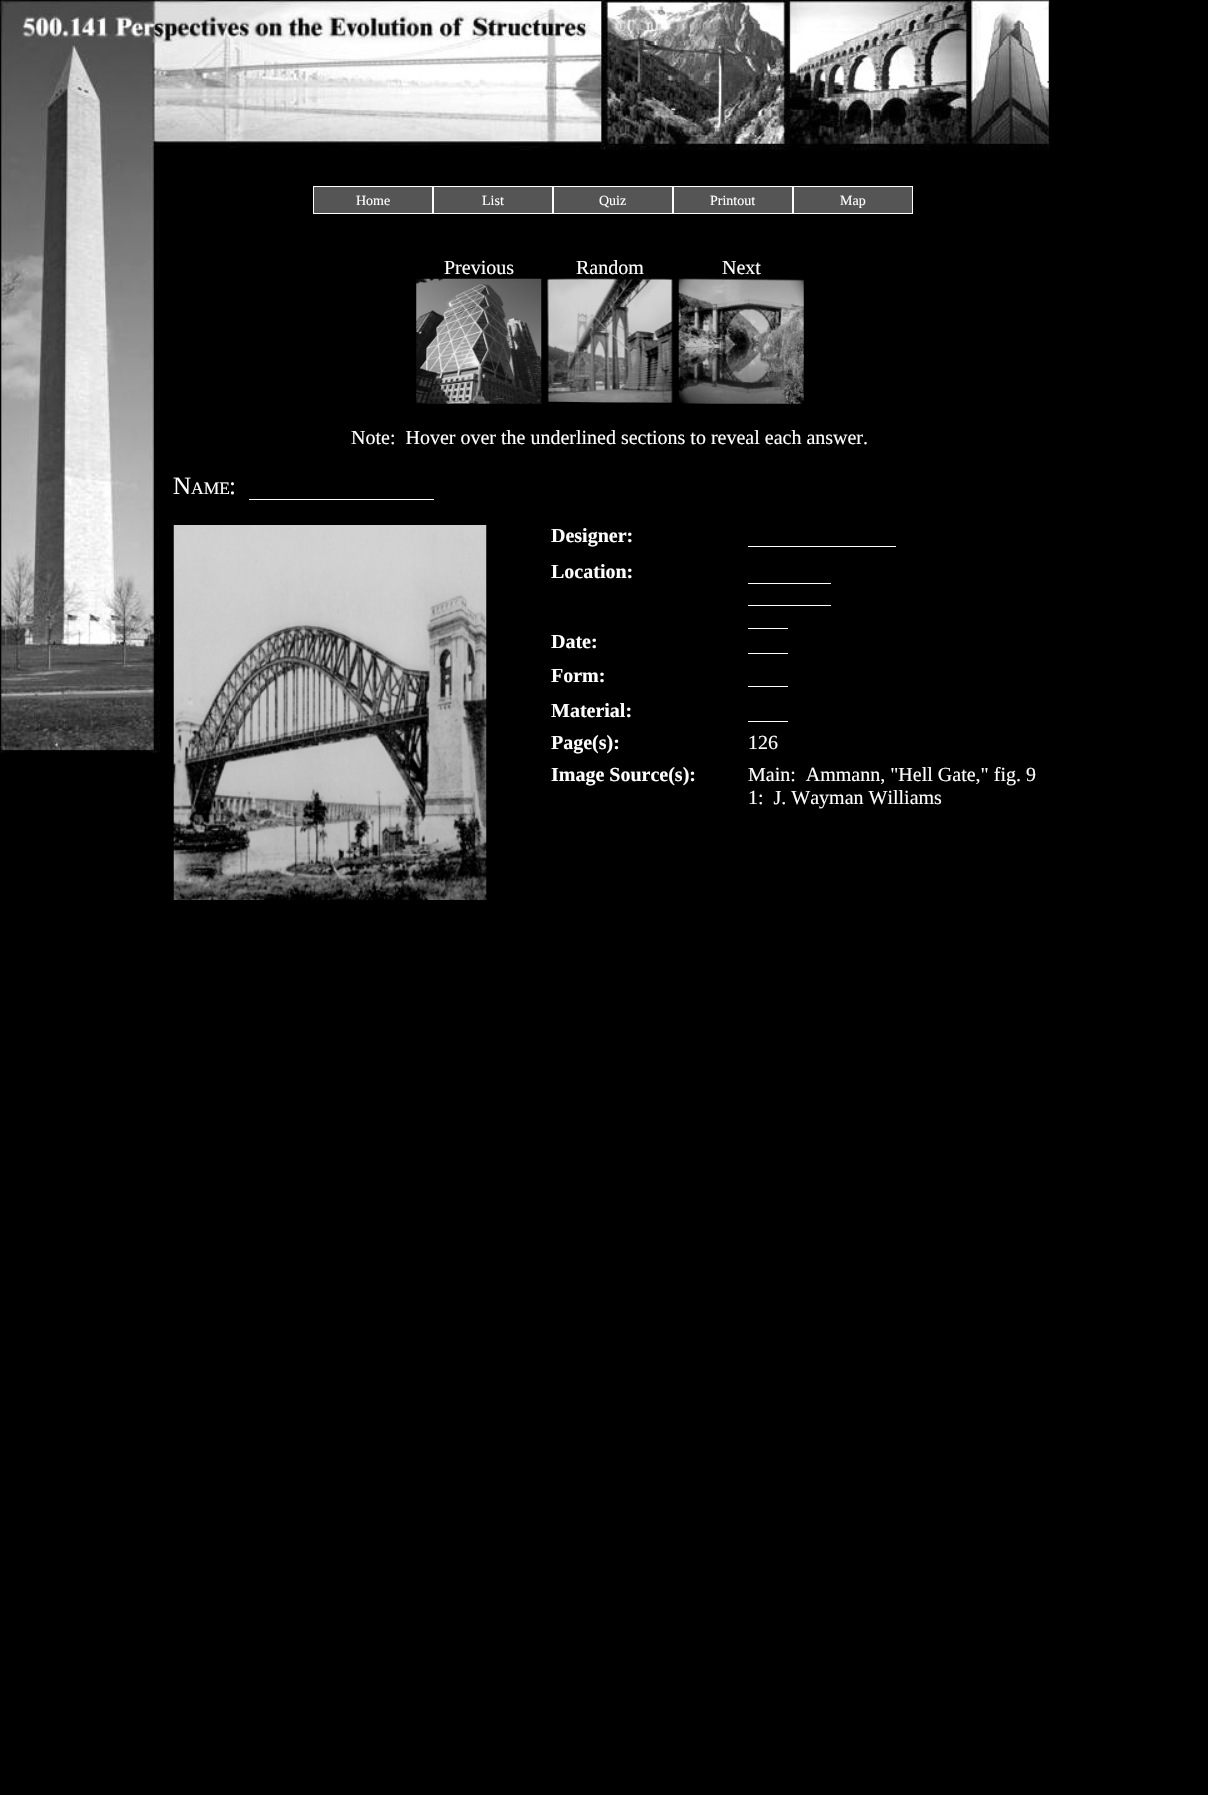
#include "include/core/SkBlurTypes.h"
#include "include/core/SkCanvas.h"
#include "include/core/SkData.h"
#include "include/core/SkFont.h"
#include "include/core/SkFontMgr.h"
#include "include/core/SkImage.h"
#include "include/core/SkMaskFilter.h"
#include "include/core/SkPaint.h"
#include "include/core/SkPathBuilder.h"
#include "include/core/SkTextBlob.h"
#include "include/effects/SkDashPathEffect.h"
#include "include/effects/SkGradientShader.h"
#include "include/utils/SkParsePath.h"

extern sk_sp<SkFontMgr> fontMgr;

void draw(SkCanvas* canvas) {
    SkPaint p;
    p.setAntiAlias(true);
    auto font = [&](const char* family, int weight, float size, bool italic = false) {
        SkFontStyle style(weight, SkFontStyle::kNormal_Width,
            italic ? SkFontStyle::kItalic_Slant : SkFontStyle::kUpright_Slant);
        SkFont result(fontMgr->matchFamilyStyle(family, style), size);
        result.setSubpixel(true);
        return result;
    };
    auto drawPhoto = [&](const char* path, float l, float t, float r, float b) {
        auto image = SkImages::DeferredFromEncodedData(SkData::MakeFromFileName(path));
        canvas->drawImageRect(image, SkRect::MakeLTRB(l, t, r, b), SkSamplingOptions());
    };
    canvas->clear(0xFF000000);
    drawPhoto("media/1.png", 0, 0, 1050, 753);
    drawPhoto("media/2.png", 0, 0, 594, 43);
    p.setColor(0xFF555555);
    canvas->drawRect(SkRect::MakeLTRB(313.5f, 186.5f, 432.5f, 213.5f), p);
    p.setStyle(SkPaint::kStroke_Style);
    p.setStrokeWidth(1);
    p.setColor(0xFFFFFFFF);
    canvas->drawRect(SkRect::MakeLTRB(313.5f, 186.5f, 432.5f, 213.5f), p);
    auto font1 = font("Liberation Serif", 400, 14);
    p.setStyle(SkPaint::kFill_Style);
    canvas->drawString("Home", 356, 205, font1, p);
    p.setColor(0xFF555555);
    canvas->drawRect(SkRect::MakeLTRB(433.5f, 186.5f, 552.5f, 213.5f), p);
    p.setStyle(SkPaint::kStroke_Style);
    p.setColor(0xFFFFFFFF);
    canvas->drawRect(SkRect::MakeLTRB(433.5f, 186.5f, 552.5f, 213.5f), p);
    p.setStyle(SkPaint::kFill_Style);
    canvas->drawString("List", 482, 205, font1, p);
    p.setColor(0xFF555555);
    canvas->drawRect(SkRect::MakeLTRB(553.5f, 186.5f, 672.5f, 213.5f), p);
    p.setStyle(SkPaint::kStroke_Style);
    p.setColor(0xFFFFFFFF);
    canvas->drawRect(SkRect::MakeLTRB(553.5f, 186.5f, 672.5f, 213.5f), p);
    p.setStyle(SkPaint::kFill_Style);
    canvas->drawString("Quiz", 599, 205, font1, p);
    p.setColor(0xFF555555);
    canvas->drawRect(SkRect::MakeLTRB(673.5f, 186.5f, 792.5f, 213.5f), p);
    p.setStyle(SkPaint::kStroke_Style);
    p.setColor(0xFFFFFFFF);
    canvas->drawRect(SkRect::MakeLTRB(673.5f, 186.5f, 792.5f, 213.5f), p);
    p.setStyle(SkPaint::kFill_Style);
    canvas->drawString("Printout", 710, 205, font1, p);
    p.setColor(0xFF555555);
    canvas->drawRect(SkRect::MakeLTRB(793.5f, 186.5f, 912.5f, 213.5f), p);
    p.setStyle(SkPaint::kStroke_Style);
    p.setColor(0xFFFFFFFF);
    canvas->drawRect(SkRect::MakeLTRB(793.5f, 186.5f, 912.5f, 213.5f), p);
    p.setStyle(SkPaint::kFill_Style);
    canvas->drawString("Map", 840, 205, font1, p);
    auto font2 = font("Liberation Serif", 400, 20);
    {
        const struct { const char* s; float x, y; } items[] = {
            {"Previous", 444, 274},
            {"Random", 576, 274},
            {"Next", 722, 274},
        };
        for (auto [s, x, y] : items) {
            canvas->drawString(s, x, y, font2, p);
        }
    }
    drawPhoto("media/3.png", 416, 278, 542, 404);
    drawPhoto("media/4.png", 547, 278, 673, 403);
    drawPhoto("media/5.png", 678, 278, 804, 404);
    canvas->drawString("Note:  Hover over the underlined sections to reveal each answer.", 351, 444, font2, p);
    auto font3 = font("Liberation Serif", 400, 25);
    canvas->drawString("N", 173, 494, font3, p);
    auto font4 = font("Liberation Serif", 400, 17.5f);
    canvas->drawString("AME", 191, 494, font4, p);
    canvas->drawString(":", 229, 494, font3, p);
    canvas->drawRect(SkRect::MakeLTRB(249, 499, 434, 500), p);
    drawPhoto("media/6.png", 173, 525, 487, 900);
    auto font5 = font("Liberation Serif", 700, 20);
    canvas->drawString("Designer:", 551, 542, font5, p);
    canvas->drawRect(SkRect::MakeLTRB(748, 546, 896, 547), p);
    canvas->drawString("Location:", 551, 578, font5, p);
    {
        const struct { float l, t, r, b; SkColor color; } items[] = {
            {748, 583, 831, 584, 0xFFFFFFFF},
            {748, 605, 831, 606, 0xFFFFFFFF},
            {748, 628, 788, 629, 0xFFFFFFFF},
        };
        for (auto [l, t, r, b, color] : items) {
            p.setColor(color);
            canvas->drawRect(SkRect::MakeLTRB(l, t, r, b), p);
        }
    }
    canvas->drawString("Date:", 551, 648, font5, p);
    canvas->drawRect(SkRect::MakeLTRB(748, 653, 788, 654), p);
    canvas->drawString("Form:", 551, 682, font5, p);
    canvas->drawRect(SkRect::MakeLTRB(748, 686, 788, 687), p);
    canvas->drawString("Material:", 551, 717, font5, p);
    canvas->drawRect(SkRect::MakeLTRB(748, 721, 788, 722), p);
    canvas->drawString("Page(s):", 551, 749, font5, p);
    canvas->drawString("126", 748, 749, font2, p);
    canvas->drawString("Image Source(s):", 551, 781, font5, p);
    canvas->drawString("Main:  Ammann, \"Hell Gate,\" fig. 9", 748, 781, font2, p);
    canvas->drawString("1:  J. Wayman Williams", 748, 804, font2, p);
}
